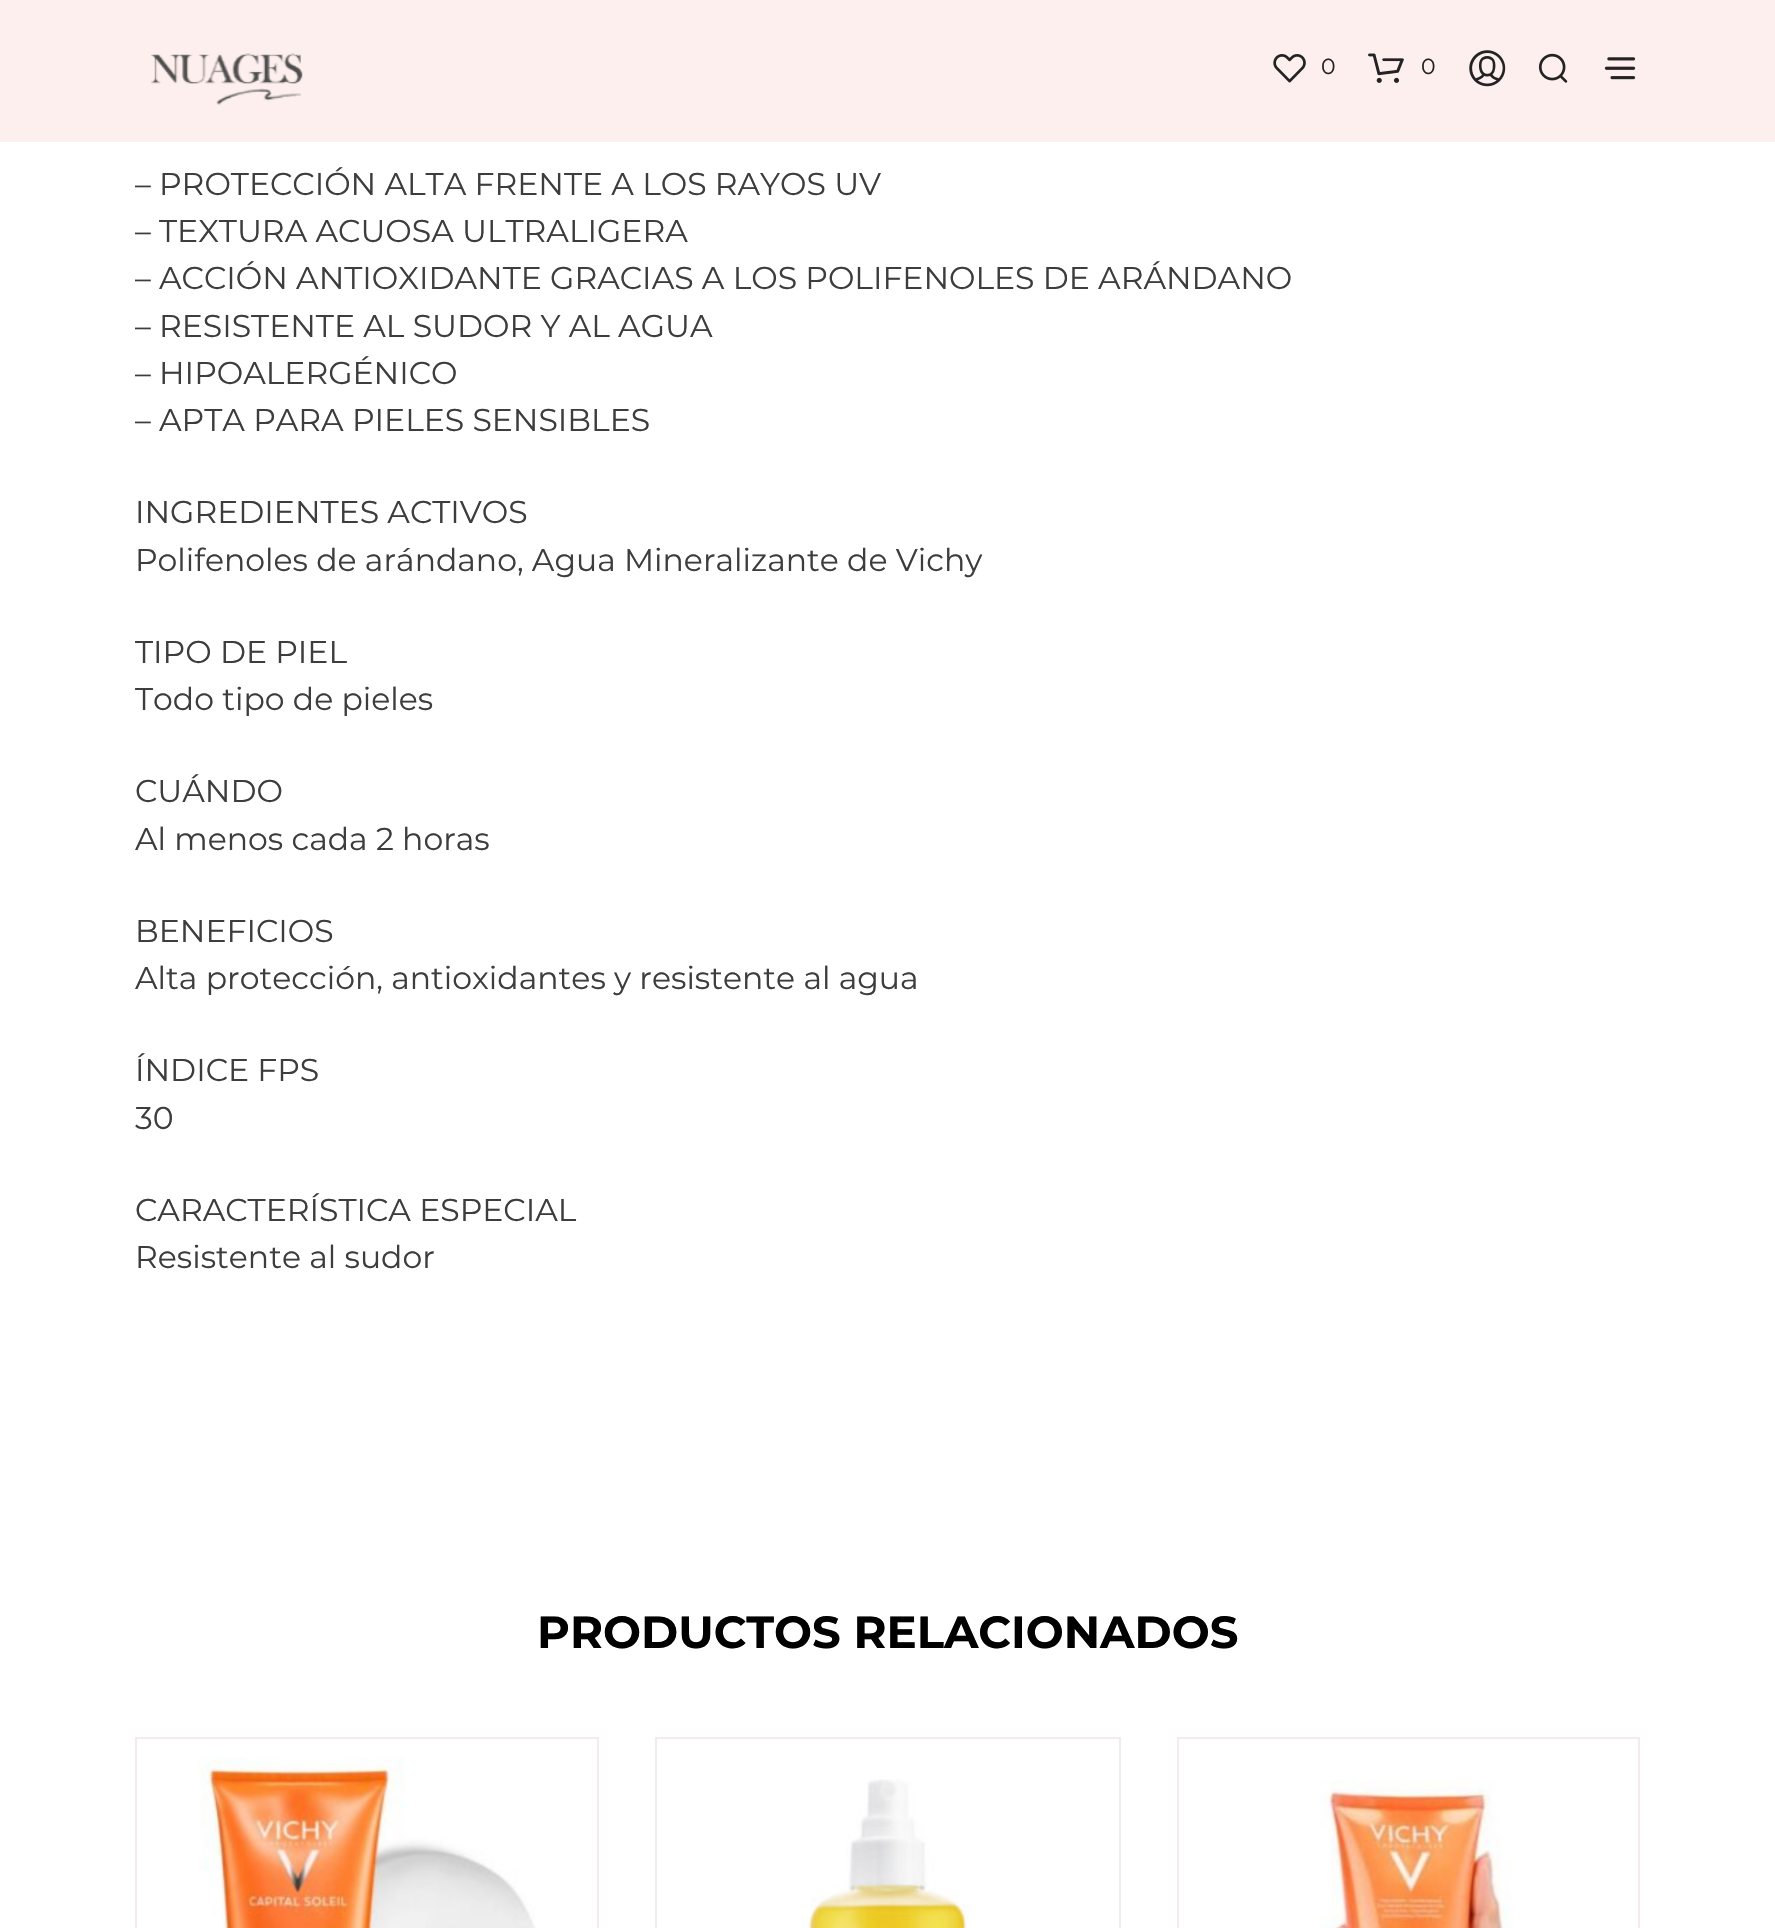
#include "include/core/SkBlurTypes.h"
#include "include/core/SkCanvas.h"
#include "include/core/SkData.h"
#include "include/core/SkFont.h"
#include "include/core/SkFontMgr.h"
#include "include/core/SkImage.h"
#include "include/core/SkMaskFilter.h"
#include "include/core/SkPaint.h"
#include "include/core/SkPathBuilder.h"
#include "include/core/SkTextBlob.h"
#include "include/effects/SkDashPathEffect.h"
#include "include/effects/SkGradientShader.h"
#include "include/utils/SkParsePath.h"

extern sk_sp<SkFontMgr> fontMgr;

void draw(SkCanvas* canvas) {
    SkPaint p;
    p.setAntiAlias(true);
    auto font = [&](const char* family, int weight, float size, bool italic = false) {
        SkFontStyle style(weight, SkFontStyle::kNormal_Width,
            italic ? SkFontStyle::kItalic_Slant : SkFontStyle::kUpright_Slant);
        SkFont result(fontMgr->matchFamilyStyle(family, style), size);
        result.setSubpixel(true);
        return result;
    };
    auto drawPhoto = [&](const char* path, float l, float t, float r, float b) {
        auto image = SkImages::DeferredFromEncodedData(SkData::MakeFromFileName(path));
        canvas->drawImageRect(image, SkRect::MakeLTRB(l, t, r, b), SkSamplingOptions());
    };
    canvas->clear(0xFFFFFFFF);
    p.setColor(0xFFFDEFED);
    canvas->drawRect(SkRect::MakeLTRB(0, 0, 1775, 142), p);
    drawPhoto("media/1.png", 151, 53, 303, 105);
    drawPhoto("media/2.png", 1273, 54, 1306, 83);
    auto font1 = font("Montserrat", 400, 22);
    p.setColor(0xFF232323);
    canvas->drawString("0", 1321, 74, font1, p);
    drawPhoto("media/3.png", 1368, 53, 1404, 83);
    canvas->drawString("0", 1421, 74, font1, p);
    drawPhoto("media/4.png", 1469, 50, 1506, 87);
    drawPhoto("media/5.png", 1538, 53, 1568, 83);
    drawPhoto("media/6.png", 1604, 57, 1636, 80);
    auto font2 = font("Montserrat", 400, 31.5f);
    p.setColor(0xFF3D3D3D);
    {
        const struct { const char* s; float x, y; } items[] = {
            {"– PROTECCIÓN ALTA FRENTE A LOS RAYOS UV", 135, 195},
            {"– TEXTURA ACUOSA ULTRALIGERA", 135, 242},
            {"– ACCIÓN ANTIOXIDANTE GRACIAS A LOS POLIFENOLES DE ARÁNDANO", 135, 289},
            {"– RESISTENTE AL SUDOR Y AL AGUA", 135, 337},
            {"– HIPOALERGÉNICO", 135, 384},
            {"– APTA PARA PIELES SENSIBLES", 135, 431},
            {"INGREDIENTES ACTIVOS", 135, 523},
            {"Polifenoles de arándano, Agua Mineralizante de Vichy", 135, 571},
            {"TIPO DE PIEL", 135, 663},
            {"Todo tipo de pieles", 135, 710},
            {"CUÁNDO", 135, 802},
            {"Al menos cada 2 horas", 135, 850},
            {"BENEFICIOS", 135, 942},
            {"Alta protección, antioxidantes y resistente al agua", 135, 989},
            {"ÍNDICE FPS", 135, 1081},
            {"30", 135, 1129},
            {"CARACTERÍSTICA ESPECIAL", 135, 1221},
            {"Resistente al sudor", 135, 1268},
        };
        for (auto [s, x, y] : items) {
            canvas->drawString(s, x, y, font2, p);
        }
    }
    auto font3 = font("Montserrat", 700, 45);
    p.setColor(0xFF000000);
    canvas->drawString("PRODUCTOS RELACIONADOS", 537, 1648, font3, p);
    p.setStyle(SkPaint::kStroke_Style);
    p.setStrokeWidth(2);
    p.setColor(0xFFF4EBEB);
    canvas->drawRect(SkRect::MakeLTRB(136, 1738, 598, 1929), p);
    drawPhoto("media/7.png", 200, 1757, 536, 1928);
    canvas->drawRect(SkRect::MakeLTRB(656, 1738, 1120, 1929), p);
    drawPhoto("media/8.png", 802, 1779, 969, 1928);
    canvas->drawRect(SkRect::MakeLTRB(1178, 1738, 1639, 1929), p);
    drawPhoto("media/9.png", 1319, 1779, 1513, 1928);
}
